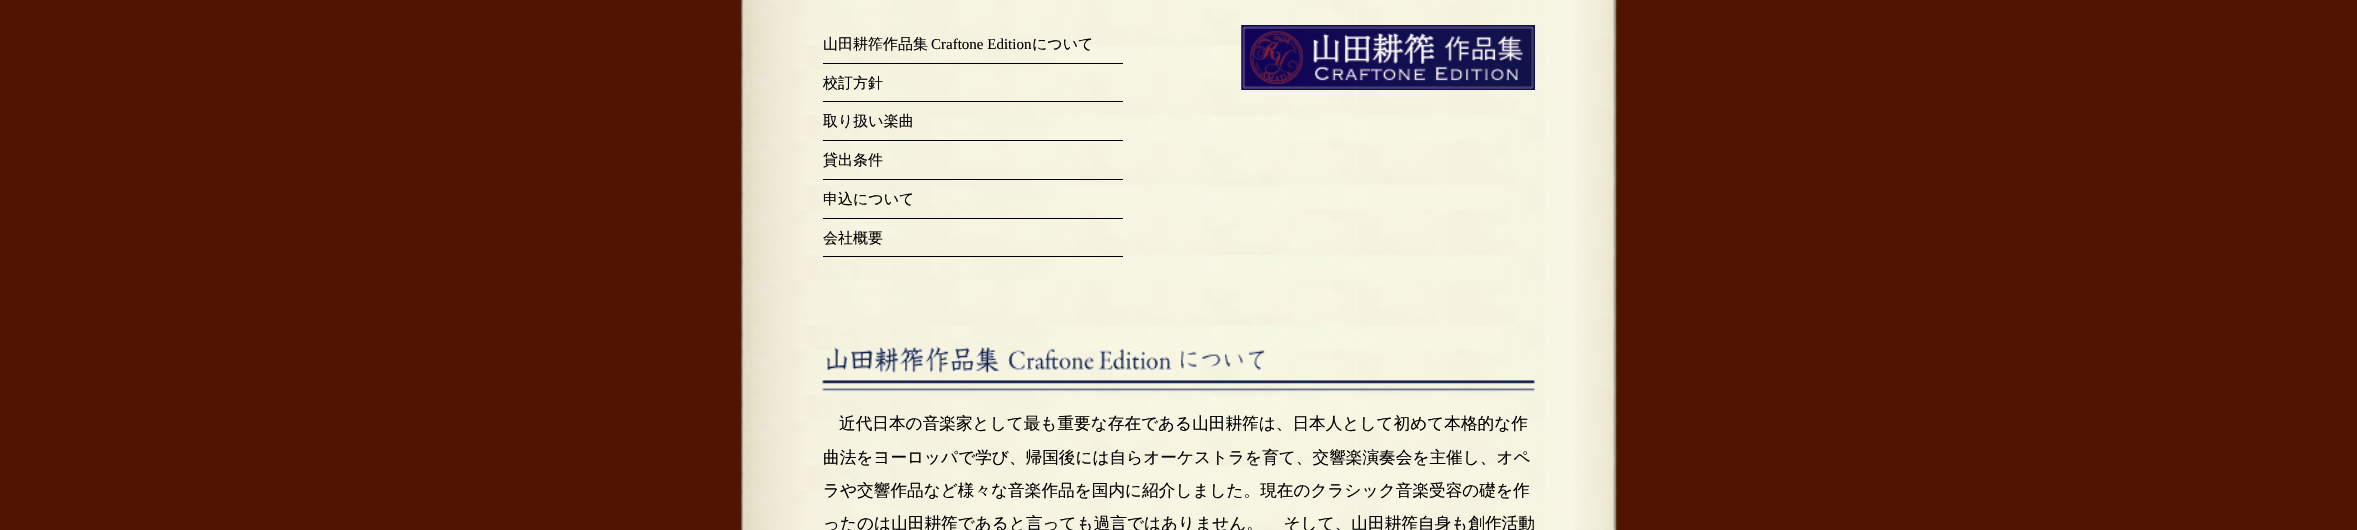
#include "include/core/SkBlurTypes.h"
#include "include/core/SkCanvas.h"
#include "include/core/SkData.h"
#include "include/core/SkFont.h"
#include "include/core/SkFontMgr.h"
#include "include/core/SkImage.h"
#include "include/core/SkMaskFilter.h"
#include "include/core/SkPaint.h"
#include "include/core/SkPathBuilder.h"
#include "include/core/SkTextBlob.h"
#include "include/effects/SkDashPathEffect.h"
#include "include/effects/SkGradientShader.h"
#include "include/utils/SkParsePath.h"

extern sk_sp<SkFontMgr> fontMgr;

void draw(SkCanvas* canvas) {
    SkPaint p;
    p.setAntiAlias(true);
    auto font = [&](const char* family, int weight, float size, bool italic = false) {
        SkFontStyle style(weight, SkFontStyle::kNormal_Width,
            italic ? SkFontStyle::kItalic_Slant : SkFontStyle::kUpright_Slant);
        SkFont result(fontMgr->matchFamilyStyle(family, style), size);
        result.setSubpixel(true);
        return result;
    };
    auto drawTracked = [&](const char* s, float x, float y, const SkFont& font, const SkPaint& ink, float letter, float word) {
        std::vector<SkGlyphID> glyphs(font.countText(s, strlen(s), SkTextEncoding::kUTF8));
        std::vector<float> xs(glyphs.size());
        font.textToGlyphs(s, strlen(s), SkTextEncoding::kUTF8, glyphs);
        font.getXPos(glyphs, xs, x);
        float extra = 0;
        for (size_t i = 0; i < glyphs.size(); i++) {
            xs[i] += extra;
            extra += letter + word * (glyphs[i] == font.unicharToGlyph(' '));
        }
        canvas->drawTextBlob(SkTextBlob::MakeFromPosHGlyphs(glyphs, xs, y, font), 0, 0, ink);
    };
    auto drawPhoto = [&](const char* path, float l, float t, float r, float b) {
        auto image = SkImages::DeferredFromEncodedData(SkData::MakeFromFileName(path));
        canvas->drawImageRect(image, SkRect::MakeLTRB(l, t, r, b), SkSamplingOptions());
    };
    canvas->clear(0xFF501400);
    drawPhoto("media/1.png", 741, 0, 1617, 530);
    p.setColor(0xFF000000);
    canvas->drawRect(SkRect::MakeLTRB(823, 63, 1123, 64), p);
    auto font1 = font("WenQuanYi Zen Hei", 500, 15);
    canvas->drawString("山田耕筰作品集", 823, 49, font1, p);
    auto font2 = font("Liberation Serif", 400, 15);
    canvas->drawString("Craftone Edition", 931, 49, font2, p);
    canvas->drawString("について", 1032, 49, font1, p);
    canvas->drawRect(SkRect::MakeLTRB(823, 101, 1123, 102), p);
    canvas->drawString("校訂方針", 823, 88, font1, p);
    canvas->drawRect(SkRect::MakeLTRB(823, 140, 1123, 141), p);
    canvas->drawString("取り扱い楽曲", 823, 126, font1, p);
    canvas->drawRect(SkRect::MakeLTRB(823, 179, 1123, 180), p);
    canvas->drawString("貸出条件", 823, 165, font1, p);
    canvas->drawRect(SkRect::MakeLTRB(823, 218, 1123, 219), p);
    canvas->drawString("申込について", 823, 204, font1, p);
    canvas->drawRect(SkRect::MakeLTRB(823, 256, 1123, 257), p);
    canvas->drawString("会社概要", 823, 243, font1, p);
    drawPhoto("media/2.png", 1241, 25, 1535, 90);
    drawPhoto("media/3.png", 822, 346, 1535, 392);
    auto font3 = font("WenQuanYi Zen Hei", 500, 16.65f);
    {
        const struct { const char* s; float x, y; } items[] = {
            {"近代日本の音楽家として最も重要な存在である山田耕筰は、日本人として初めて本格的な作", 839, 429},
            {"曲法をヨーロッパで学び、帰国後には自らオーケストラを育て、交響楽演奏会を主催し、オペ", 823, 463},
            {"ラや交響作品など様々な音楽作品を国内に紹介しました。現在のクラシック音楽受容の礎を作", 823, 496},
        };
        for (auto [s, x, y] : items) {
            canvas->drawString(s, x, y, font3, p);
        }
    }
    drawTracked("ったのは山田耕筰であると言っても過言ではありません。 　そして、山田耕筰自身も創作活動", 823, 529, font3, p, 0, -1);
}
